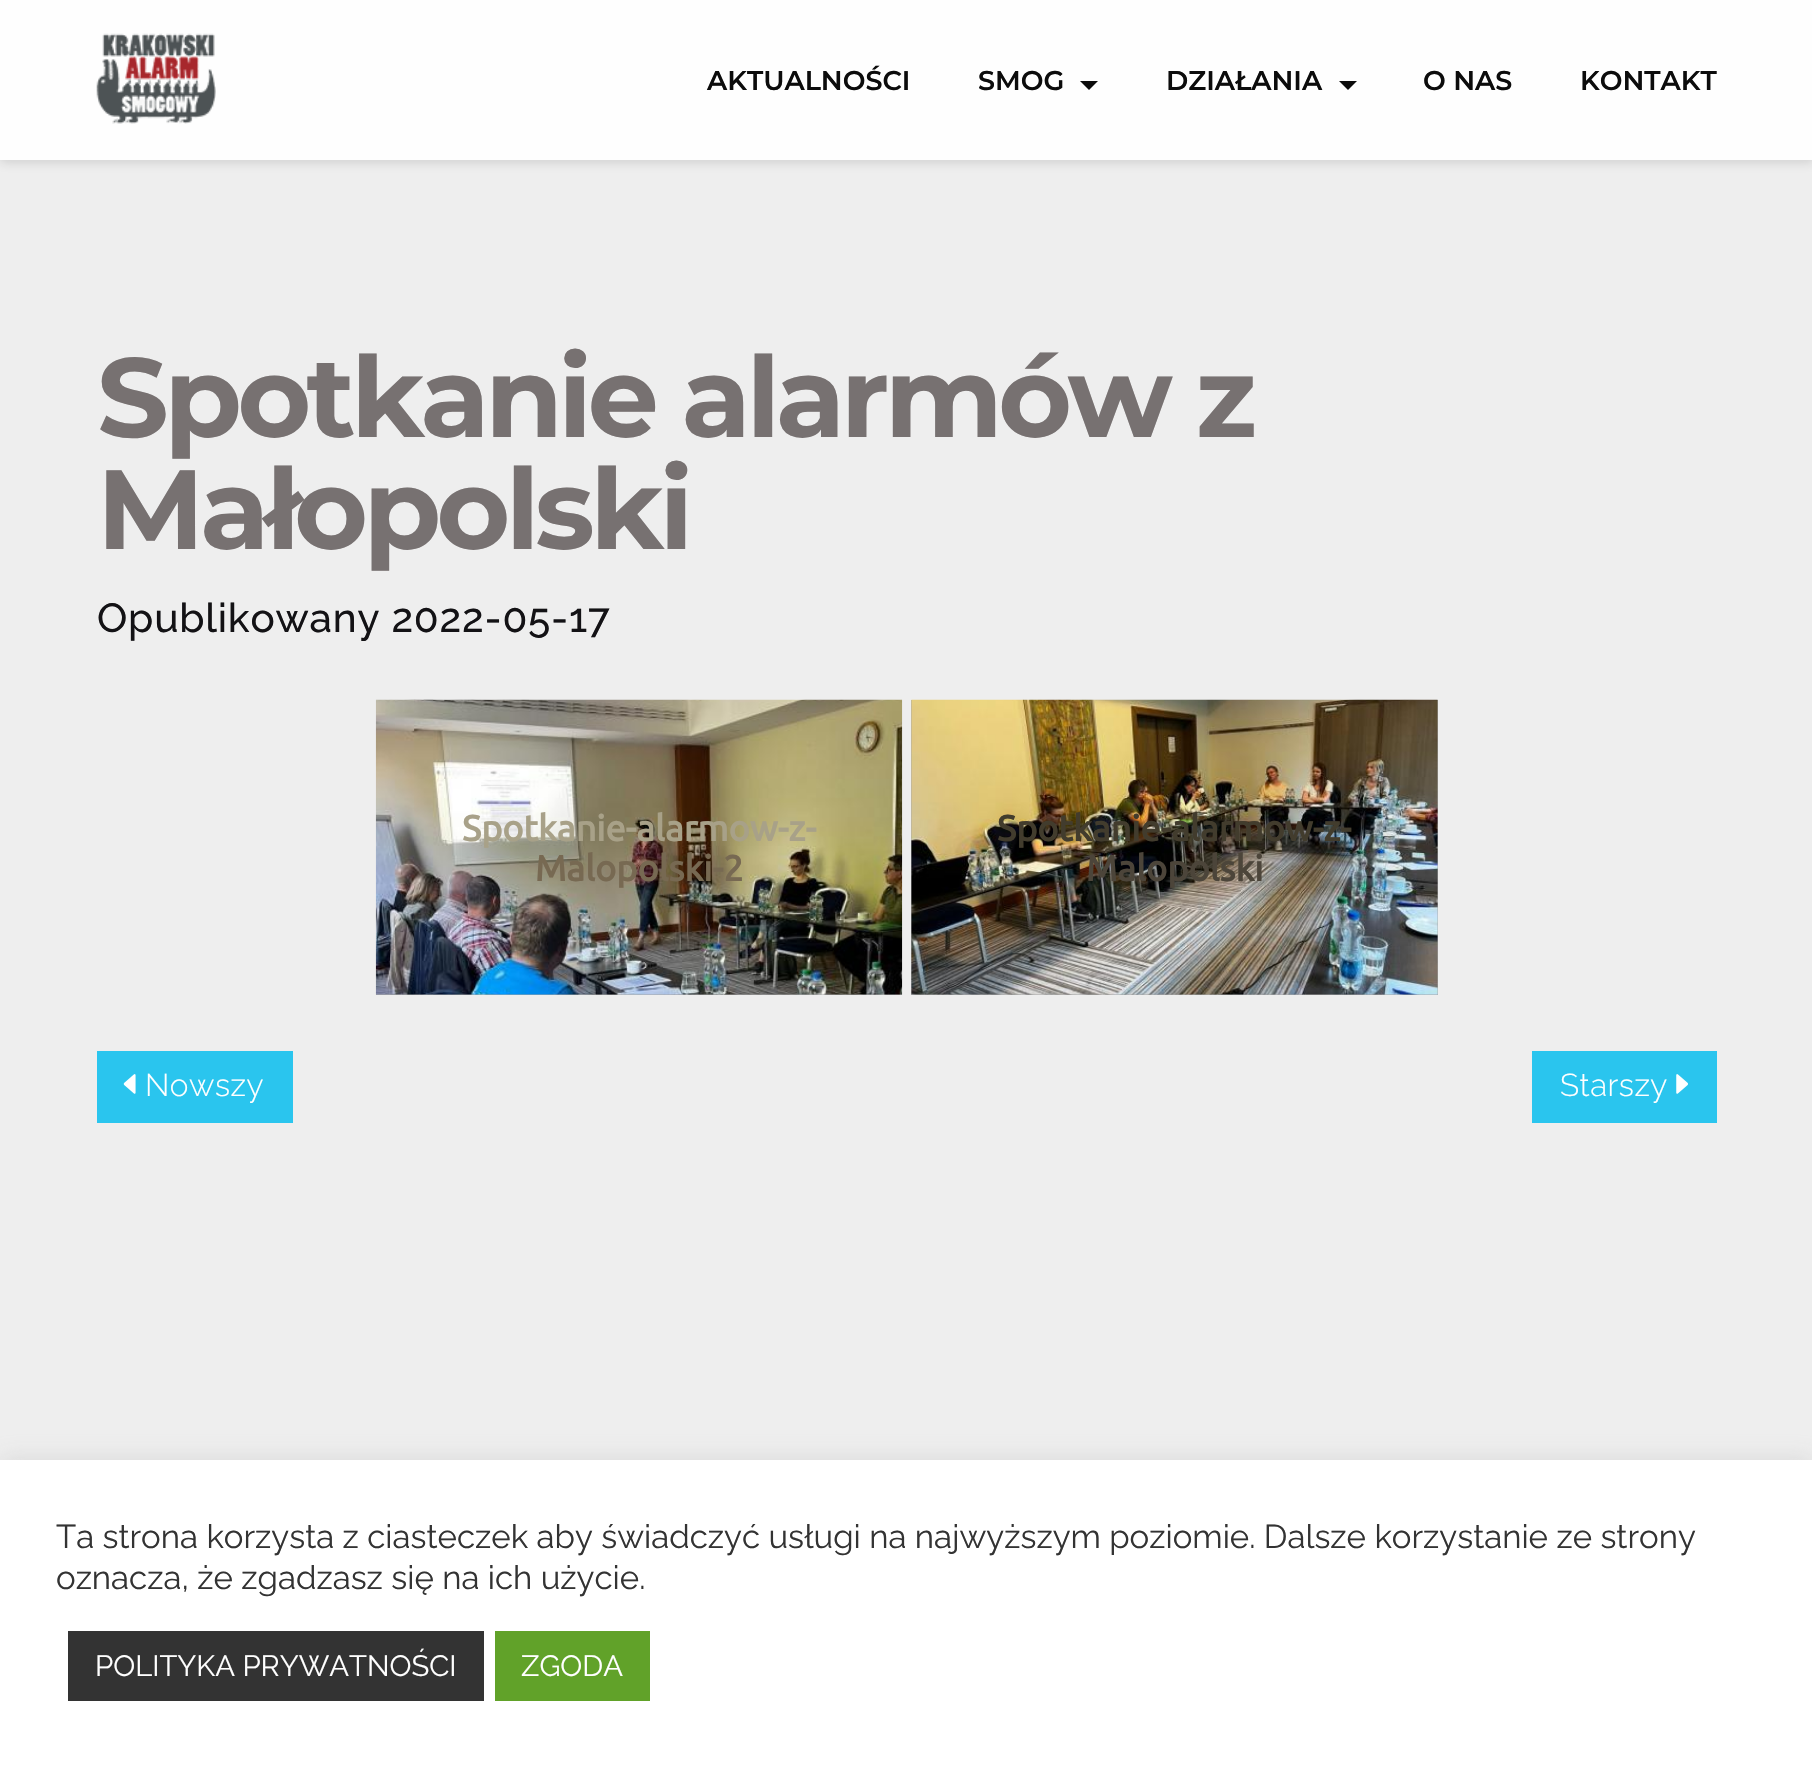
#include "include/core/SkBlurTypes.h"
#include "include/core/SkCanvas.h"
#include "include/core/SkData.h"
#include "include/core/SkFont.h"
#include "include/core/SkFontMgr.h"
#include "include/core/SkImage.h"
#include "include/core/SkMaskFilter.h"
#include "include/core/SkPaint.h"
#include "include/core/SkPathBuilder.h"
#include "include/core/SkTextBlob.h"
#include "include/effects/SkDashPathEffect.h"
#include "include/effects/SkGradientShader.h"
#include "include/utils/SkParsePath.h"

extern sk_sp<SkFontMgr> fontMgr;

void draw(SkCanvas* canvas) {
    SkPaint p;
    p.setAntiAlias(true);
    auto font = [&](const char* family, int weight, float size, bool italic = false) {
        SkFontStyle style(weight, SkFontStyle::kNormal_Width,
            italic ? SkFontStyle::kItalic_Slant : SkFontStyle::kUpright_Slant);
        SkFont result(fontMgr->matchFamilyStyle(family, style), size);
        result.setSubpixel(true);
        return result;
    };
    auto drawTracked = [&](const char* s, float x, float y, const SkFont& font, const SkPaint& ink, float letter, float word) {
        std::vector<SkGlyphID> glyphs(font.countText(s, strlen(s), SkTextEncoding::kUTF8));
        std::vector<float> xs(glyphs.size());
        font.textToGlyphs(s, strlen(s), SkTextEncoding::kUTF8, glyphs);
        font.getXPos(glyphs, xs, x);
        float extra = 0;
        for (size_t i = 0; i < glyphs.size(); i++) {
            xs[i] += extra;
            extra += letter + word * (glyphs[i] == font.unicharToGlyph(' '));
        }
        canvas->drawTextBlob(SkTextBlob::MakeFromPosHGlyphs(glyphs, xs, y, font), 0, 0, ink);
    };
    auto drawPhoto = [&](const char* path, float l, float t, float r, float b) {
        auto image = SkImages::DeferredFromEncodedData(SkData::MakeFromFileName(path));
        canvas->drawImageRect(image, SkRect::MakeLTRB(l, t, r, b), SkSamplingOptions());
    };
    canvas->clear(0xFFEEEEEE);
    p.setColor(0x260C0C0C);
    p.setMaskFilter(SkMaskFilter::MakeBlur(kNormal_SkBlurStyle, 5.5f));
    canvas->drawRect(SkRect::MakeLTRB(0, 2, 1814, 162), p);
    p.setMaskFilter(nullptr);
    p.setColor(0xFFFEFEFE);
    canvas->drawRect(SkRect::MakeLTRB(0, 0, 1812, 160), p);
    drawPhoto("media/1.png", 96, 33, 216, 124);
    auto font1 = font("Montserrat", 600, 27);
    p.setColor(0xFF0C0C0C);
    canvas->drawString("AKTUALNOŚCI", 707, 90, font1, p);
    canvas->drawString("SMOG", 978, 90, font1, p);
    canvas->drawPath(SkPathBuilder().moveTo(1080, 81).lineTo(1098, 81).lineTo(1089, 90).close().detach(), p);
    canvas->drawString("DZIAŁANIA", 1166, 90, font1, p);
    canvas->drawPath(SkPathBuilder().moveTo(1339, 81).lineTo(1357, 81).lineTo(1348, 90).close().detach(), p);
    canvas->drawString("O NAS", 1423, 90, font1, p);
    canvas->drawString("KONTAKT", 1580, 90, font1, p);
    auto font2 = font("Montserrat", 700, 112.5f);
    p.setColor(0xFF777171);
    drawTracked("Spotkanie alarmów z", 97, 437, font2, p, -4.5f, 0);
    drawTracked("Małopolski", 97, 549, font2, p, -4.5f, 0);
    auto font3 = font("Raleway", 500, 40.5f);
    p.setColor(0xFF131215);
    drawTracked("Opublikowany 2022-05-17", 97, 632, font3, p, 0.8f, 0);
    p.setColor(0xFFA7A7A7);
    canvas->drawRect(SkRect::MakeLTRB(376, 994, 902, 995), p);
    drawPhoto("media/2.png", 375, 699, 903, 995);
    auto font4 = font("Ubuntu", 700, 36);
    p.setColor(0xFFA8A188);
    canvas->drawString("Spotkanie-alarmow-z-", 462, 841, font4, p);
    p.setColor(0xFF776952);
    canvas->drawString("Malopolski-2", 535, 881, font4, p);
    p.setColor(0xFFA7A7A7);
    canvas->drawRect(SkRect::MakeLTRB(911, 700, 1438, 995), p);
    drawPhoto("media/3.png", 911, 699, 1438, 995);
    p.setColor(0xFF423C2D);
    canvas->drawString("Spotkanie-alarmow-z-", 997, 841, font4, p);
    p.setColor(0xFF4C453A);
    canvas->drawString("Malopolski", 1086, 881, font4, p);
    p.setColor(0xFF2AC5EE);
    canvas->drawRect(SkRect::MakeLTRB(97, 1051, 293, 1123), p);
    drawPhoto("media/4.png", 123, 1074, 136, 1094);
    auto font5 = font("Raleway", 300, 31.5f);
    p.setColor(0xFFFFFFFF);
    drawTracked("Nowszy", 145, 1096, font5, p, 0.5f, 0);
    p.setColor(0xFF2AC5EE);
    canvas->drawRect(SkRect::MakeLTRB(1532, 1051, 1717, 1123), p);
    p.setColor(0xFFFFFFFF);
    drawTracked("Starszy", 1560, 1096, font5, p, 0.5f, 0);
    drawPhoto("media/5.png", 1676, 1074, 1688, 1094);
    p.setColor(0x4DACABAB);
    p.setMaskFilter(SkMaskFilter::MakeBlur(kNormal_SkBlurStyle, 11));
    canvas->drawRect(SkRect::MakeLTRB(0, 1458, 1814, 1766), p);
    p.setMaskFilter(nullptr);
    p.setColor(0xFFFFFFFF);
    canvas->drawRect(SkRect::MakeLTRB(0, 1460, 1812, 1768), p);
    auto font6 = font("Raleway", 400, 33);
    p.setColor(0xFF333333);
    canvas->drawString("Ta strona korzysta z ciasteczek aby świadczyć usługi na najwyższym poziomie. Dalsze korzystanie ze strony", 56, 1548, font6, p);
    canvas->drawString("oznacza, że zgadzasz się na ich użycie.", 56, 1589, font6, p);
    canvas->drawRect(SkRect::MakeLTRB(68, 1631, 484, 1701), p);
    auto font7 = font("Raleway", 400, 29.25f);
    p.setColor(0xFFFFFFFF);
    canvas->drawString("POLITYKA PRYWATNOŚCI", 95, 1676, font7, p);
    p.setColor(0xFF61A229);
    canvas->drawRect(SkRect::MakeLTRB(495, 1631, 650, 1701), p);
    p.setColor(0xFFFFFFFF);
    canvas->drawString("ZGODA", 521, 1676, font7, p);
}
